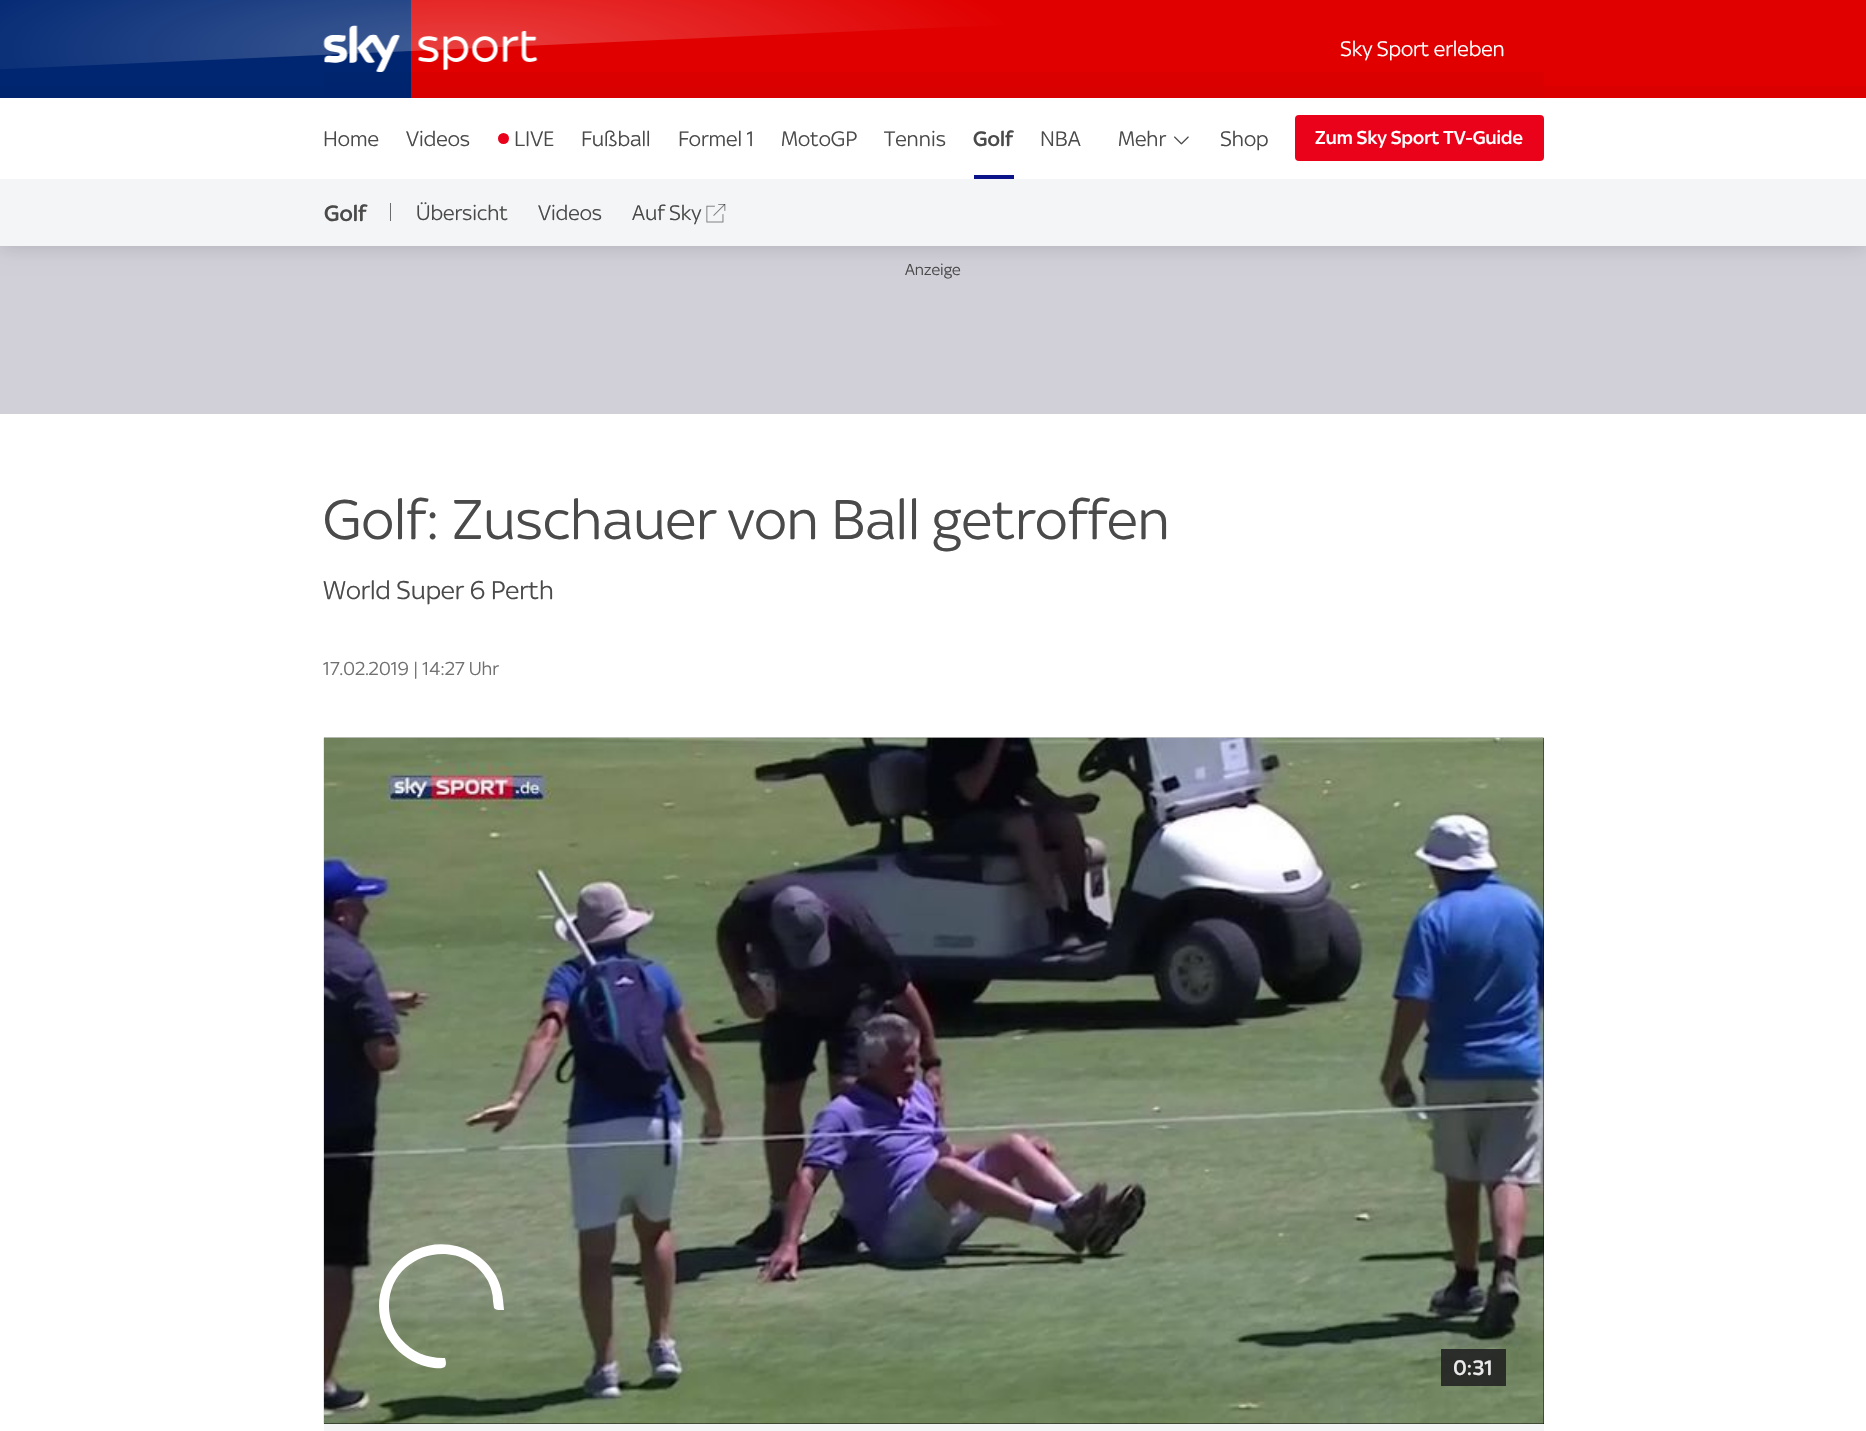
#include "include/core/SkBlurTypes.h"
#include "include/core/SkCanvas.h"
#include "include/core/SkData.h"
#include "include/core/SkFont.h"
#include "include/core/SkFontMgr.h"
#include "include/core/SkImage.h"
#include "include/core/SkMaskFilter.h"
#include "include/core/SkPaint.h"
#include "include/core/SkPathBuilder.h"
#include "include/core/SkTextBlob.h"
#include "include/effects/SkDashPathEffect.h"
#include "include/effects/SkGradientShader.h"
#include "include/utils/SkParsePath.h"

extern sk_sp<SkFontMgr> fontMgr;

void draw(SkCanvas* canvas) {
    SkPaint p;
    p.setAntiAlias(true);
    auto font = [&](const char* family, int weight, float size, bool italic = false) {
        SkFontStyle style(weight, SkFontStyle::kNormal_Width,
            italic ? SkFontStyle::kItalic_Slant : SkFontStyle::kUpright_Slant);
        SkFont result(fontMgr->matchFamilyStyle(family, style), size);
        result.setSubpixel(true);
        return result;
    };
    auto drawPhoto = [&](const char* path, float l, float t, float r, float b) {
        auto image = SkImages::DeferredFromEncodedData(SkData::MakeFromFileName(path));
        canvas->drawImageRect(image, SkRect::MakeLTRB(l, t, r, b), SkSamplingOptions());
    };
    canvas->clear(0xFFFFFFFF);
    p.setColor(0xFFD1CFD8);
    canvas->drawRect(SkRect::MakeLTRB(0, 246, 1866, 414), p);
    p.setColor(0x24000000);
    p.setMaskFilter(SkMaskFilter::MakeBlur(kNormal_SkBlurStyle, 9.5f));
    canvas->drawRect(SkRect::MakeLTRB(0, 1, 1866, 248), p);
    p.setMaskFilter(nullptr);
    p.setColor(0xFF002672);
    canvas->drawRect(SkRect::MakeLTRB(0, 0, 324, 98), p);
    p.setColor(0xFFE10000);
    canvas->drawRect(SkRect::MakeLTRB(1544, 0, 1866, 98), p);
    {
        const SkColor colors[] = {0x1A000000, 0x00000000};
        const float stops[] = {0, 0.66f};
        const SkPoint ends[] = {{933, 179}, {933, 0}};
        p.setShader(SkGradientShader::MakeLinear(ends, colors, stops, 2, SkTileMode::kClamp));
        p.setAlpha(255);
    }
    canvas->drawRect(SkRect::MakeLTRB(0, 86, 1866, 98), p);
    p.setShader(nullptr);
    p.setColor(0xFF002672);
    canvas->drawRect(SkRect::MakeLTRB(324, 0, 411, 98), p);
    p.setColor(0xFFE10000);
    canvas->drawRect(SkRect::MakeLTRB(411, 0, 1544, 98), p);
    {
        const SkColor colors[] = {0x1A000000, 0x00000000};
        const float stops[] = {0, 0.76f};
        const SkPoint ends[] = {{933, 179}, {933, 0}};
        p.setShader(SkGradientShader::MakeLinear(ends, colors, stops, 2, SkTileMode::kClamp));
        p.setAlpha(255);
    }
    canvas->drawRect(SkRect::MakeLTRB(324, 72, 1544, 98), p);
    drawPhoto("media/1.png", 323, 25, 538, 72);
    {
        const SkColor colors[] = {0x40FFFFFF, 0x00FFFFFF};
        const float stops[] = {0, 1};
        SkMatrix m = SkMatrix::Translate(457, 49).preScale(563, 125);
        p.setShader(SkGradientShader::MakeRadial({0, 0}, 1, colors, stops, 2, SkTileMode::kClamp, 0, &m));
        p.setAlpha(255);
    }
    canvas->drawPath(SkPathBuilder().moveTo(-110, -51).lineTo(1014, -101).lineTo(1019, 24).lineTo(-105, 74).lineTo(-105, 58).close().detach(), p);
    auto font1 = font("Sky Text", 400, 22.5f);
    p.setShader(nullptr);
    p.setColor(0xFFFFFFFF);
    canvas->drawString("Sky Sport erleben", 1340, 56, font1, p);
    canvas->drawRect(SkRect::MakeLTRB(0, 98, 1866, 179), p);
    p.setColor(0xFF4A4A4A);
    canvas->drawString("Home", 323, 146, font1, p);
    canvas->drawString("Videos", 406, 146, font1, p);
    p.setColor(0xFFEA021A);
    canvas->drawCircle(503.5f, 138.5f, 5.5f, p);
    p.setColor(0xFF4A4A4A);
    {
        const struct { const char* s; float x, y; } items[] = {
            {"LIVE", 514, 146},
            {"Fußball", 581, 146},
            {"Formel 1", 678, 146},
            {"MotoGP", 781, 146},
            {"Tennis", 884, 146},
        };
        for (auto [s, x, y] : items) {
            canvas->drawString(s, x, y, font1, p);
        }
    }
    p.setColor(0xFF0A1388);
    canvas->drawRect(SkRect::MakeLTRB(974, 175, 1014, 179), p);
    auto font2 = font("Sky Text", 500, 22.5f);
    p.setColor(0xFF4A4A4A);
    canvas->drawString("Golf", 973, 146, font2, p);
    canvas->drawString("NBA", 1040, 146, font1, p);
    canvas->drawString("Mehr", 1118, 146, font1, p);
    drawPhoto("media/2.png", 1174, 136, 1189, 145);
    canvas->drawString("Shop", 1220, 146, font1, p);
    p.setColor(0xFFEA021A);
    canvas->drawRoundRect(SkRect::MakeLTRB(1295, 115, 1544, 161), 4, 4, p);
    auto font3 = font("Sky Text", 500, 20);
    p.setColor(0xFFFFFFFF);
    canvas->drawString("Zum Sky Sport TV-Guide", 1315, 144, font3, p);
    p.setColor(0xFFF4F5F7);
    canvas->drawRect(SkRect::MakeLTRB(0, 179, 1866, 246), p);
    auto font4 = font("Sky Text", 500, 24);
    p.setColor(0xFF4A4A4A);
    canvas->drawString("Golf", 324, 221, font4, p);
    p.setColor(0xFF6C6C6D);
    canvas->drawRect(SkRect::MakeLTRB(390, 203, 391, 221), p);
    p.setColor(0xFF4A4A4A);
    {
        const struct { const char* s; float x, y; } items[] = {
            {"Übersicht", 416, 220},
            {"Videos", 538, 220},
            {"Auf Sky", 632, 220},
        };
        for (auto [s, x, y] : items) {
            canvas->drawString(s, x, y, font1, p);
        }
    }
    drawPhoto("media/3.png", 706, 204, 726, 223);
    auto font5 = font("Sky Text", 400, 17);
    canvas->drawString("Anzeige", 905, 275, font5, p);
    auto font6 = font("Sky Text", 400, 60);
    canvas->drawString("Golf: Zuschauer von Ball getroffen", 323, 539, font6, p);
    auto font7 = font("Sky Text", 400, 27.5f);
    canvas->drawString("World Super 6 Perth", 323, 599, font7, p);
    auto font8 = font("Sky Text", 400, 20);
    p.setColor(0xFF707070);
    canvas->drawString("17.02.2019 | 14:27 Uhr", 323, 675, font8, p);
    drawPhoto("media/4.png", 323, 737, 1544, 1424);
    p.setColor(0xFF000000);
    canvas->drawRect(SkRect::MakeLTRB(324, 738, 1544, 1424), p);
    drawPhoto("media/5.png", 323, 737, 1544, 1424);
    p.setColor(0xFFFFFFFF);
    canvas->drawPath(SkPathBuilder().moveTo(500, 1310).cubicTo(498, 1310, 496, 1310, 494, 1308).lineTo(493, 1301).cubicTo(493, 1294, 491, 1287, 488, 1281).cubicTo(462, 1234, 389, 1252, 389, 1306).cubicTo(389, 1318, 393, 1330, 401, 1339).cubicTo(412, 1352, 427, 1358, 443, 1358).lineTo(445, 1358).cubicTo(448, 1368, 444, 1369, 434, 1368).cubicTo(403, 1364, 379, 1337, 379, 1306).cubicTo(379, 1292, 384, 1278, 393, 1267).cubicTo(421, 1233, 475, 1238, 496, 1276).cubicTo(502, 1287, 503, 1298, 504, 1310).close().detach(), p);
    p.setColor(0xE6222222);
    canvas->drawRect(SkRect::MakeLTRB(1441, 1349, 1506, 1386), p);
    p.setColor(0xFFEAEAEA);
    canvas->drawString("0:31", 1453, 1375, font2, p);
    p.setColor(0xFFF4F5F7);
    canvas->drawRect(SkRect::MakeLTRB(324, 1424, 1544, 1431), p);
}
